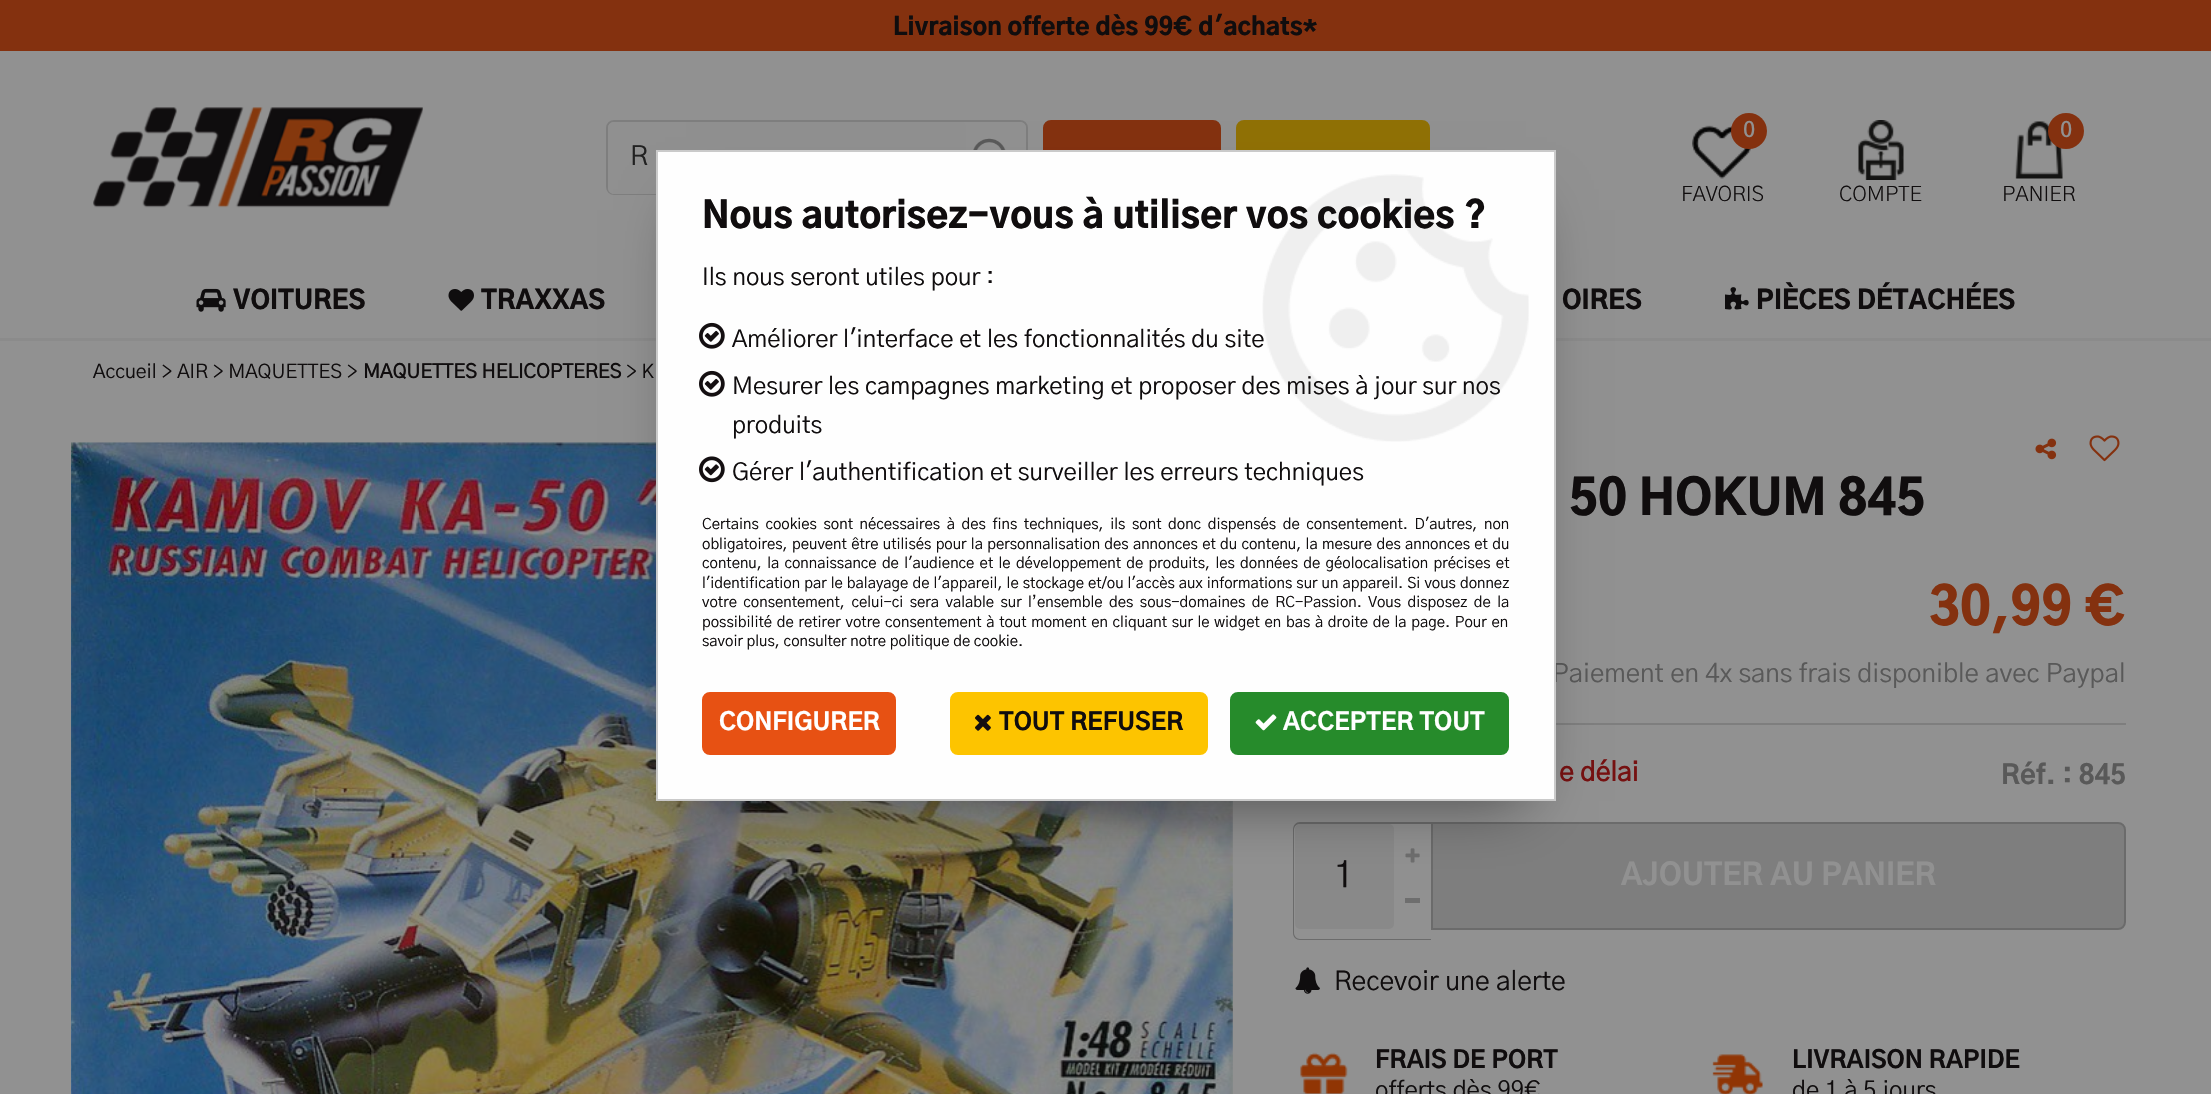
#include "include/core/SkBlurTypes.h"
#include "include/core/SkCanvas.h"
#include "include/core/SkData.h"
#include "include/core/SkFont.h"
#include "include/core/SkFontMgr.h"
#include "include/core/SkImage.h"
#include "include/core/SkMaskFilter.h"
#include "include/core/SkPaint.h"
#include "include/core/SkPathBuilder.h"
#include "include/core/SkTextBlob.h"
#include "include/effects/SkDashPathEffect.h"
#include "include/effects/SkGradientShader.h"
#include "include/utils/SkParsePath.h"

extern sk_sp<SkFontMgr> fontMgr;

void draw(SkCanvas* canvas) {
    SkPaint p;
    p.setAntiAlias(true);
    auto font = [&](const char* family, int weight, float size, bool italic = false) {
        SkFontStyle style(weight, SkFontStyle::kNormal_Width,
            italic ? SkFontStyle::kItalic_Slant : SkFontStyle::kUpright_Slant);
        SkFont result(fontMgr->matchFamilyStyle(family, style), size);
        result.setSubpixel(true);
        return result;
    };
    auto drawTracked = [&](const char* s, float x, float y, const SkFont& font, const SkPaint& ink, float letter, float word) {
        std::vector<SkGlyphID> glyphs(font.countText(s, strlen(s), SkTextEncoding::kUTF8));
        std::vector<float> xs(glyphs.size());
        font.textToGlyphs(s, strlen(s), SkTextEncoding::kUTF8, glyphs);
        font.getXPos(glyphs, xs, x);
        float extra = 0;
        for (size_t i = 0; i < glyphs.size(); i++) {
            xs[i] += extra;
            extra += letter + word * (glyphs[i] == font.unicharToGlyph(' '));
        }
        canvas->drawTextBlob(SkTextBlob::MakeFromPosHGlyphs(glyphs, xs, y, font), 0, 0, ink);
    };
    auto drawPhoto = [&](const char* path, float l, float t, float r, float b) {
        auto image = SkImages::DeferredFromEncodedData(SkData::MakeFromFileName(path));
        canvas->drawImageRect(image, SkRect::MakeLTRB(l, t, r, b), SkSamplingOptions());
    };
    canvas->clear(0xFF919191);
    p.setColor(0xFF84310F);
    canvas->drawRect(SkRect::MakeLTRB(0, 0, 2211, 51), p);
    auto font1 = font("Gothic A1", 900, 24);
    p.setColor(0xFF100D0E);
    canvas->drawString("Livraison offerte dès 99€ d'achats*", 893, 35, font1, p);
    p.setColor(0xFF8B8B8B);
    canvas->drawRect(SkRect::MakeLTRB(0, 338, 2211, 341), p);
    drawPhoto("media/1.png", 93, 107, 423, 208);
    p.setStyle(SkPaint::kStroke_Style);
    p.setStrokeWidth(2);
    p.setColor(0xFF7E7E7E);
    canvas->drawRoundRect(SkRect::MakeLTRB(607, 121, 1027, 194), 7, 7, p);
    p.setStyle(SkPaint::kFill_Style);
    p.setColor(0xFF909090);
    canvas->drawPath(SkPathBuilder().moveTo(614, 122).lineTo(961, 122).cubicTo(964, 122, 966, 124, 966, 127).lineTo(966, 189).cubicTo(966, 192, 964, 194, 961, 194).lineTo(614, 194).cubicTo(610.5f, 194, 608, 191.5f, 608, 188).lineTo(608, 128).cubicTo(608, 124.5f, 610.5f, 122, 614, 122).close().detach(), p);
    auto font2 = font("Gothic A1", 400, 27);
    p.setColor(0xFF212121);
    canvas->drawString("R", 630, 165, font2, p);
    p.setColor(0xFF919191);
    canvas->drawPath(SkPathBuilder().moveTo(966, 122).lineTo(1020, 122).cubicTo(1023.5f, 122, 1026, 124.5f, 1026, 128).lineTo(1026, 188).cubicTo(1026, 191.5f, 1023.5f, 194, 1020, 194).lineTo(966, 194).close().detach(), p);
    drawPhoto("media/2.png", 973, 138, 1006, 150);
    p.setColor(0xFF84310F);
    canvas->drawRoundRect(SkRect::MakeLTRB(1044, 121, 1220, 194), 7, 7, p);
    p.setStyle(SkPaint::kStroke_Style);
    canvas->drawRoundRect(SkRect::MakeLTRB(1044, 121, 1220, 194), 7, 7, p);
    p.setStyle(SkPaint::kFill_Style);
    p.setColor(0xFF907005);
    canvas->drawRoundRect(SkRect::MakeLTRB(1237, 121, 1429, 194), 7, 7, p);
    p.setStyle(SkPaint::kStroke_Style);
    canvas->drawRoundRect(SkRect::MakeLTRB(1237, 121, 1429, 194), 7, 7, p);
    drawPhoto("media/3.png", 1692, 125, 1751, 179);
    p.setStyle(SkPaint::kFill_Style);
    p.setColor(0xFF84310F);
    canvas->drawCircle(1749, 131, 18, p);
    auto font3 = font("Gothic A1", 700, 21);
    p.setColor(0xFF919191);
    canvas->drawString("0", 1743, 137, font3, p);
    auto font4 = font("Gothic A1", 300, 21);
    p.setColor(0xFF100D0E);
    canvas->drawString("FAVORIS", 1681, 201, font4, p);
    drawPhoto("media/4.png", 1858, 120, 1904, 180);
    canvas->drawString("COMPTE", 1839, 201, font4, p);
    drawPhoto("media/5.png", 2015, 121, 2063, 179);
    p.setColor(0xFF84310F);
    canvas->drawCircle(2066, 131, 18, p);
    p.setColor(0xFF919191);
    canvas->drawString("0", 2060, 137, font3, p);
    p.setColor(0xFF100D0E);
    canvas->drawString("PANIER", 2002, 201, font4, p);
    drawPhoto("media/6.png", 196, 288, 226, 312);
    auto font5 = font("Gothic A1", 900, 25.5f);
    canvas->drawString("VOITURES", 233, 309, font5, p);
    drawPhoto("media/7.png", 448, 289, 474, 311);
    canvas->drawString("TRAXXAS", 481, 309, font5, p);
    canvas->drawString("OIRES", 1562, 309, font5, p);
    drawPhoto("media/8.png", 1725, 287, 1749, 310);
    canvas->drawString("PIÈCES DÉTACHÉES", 1756, 309, font5, p);
    auto font6 = font("Gothic A1", 400, 19.5f);
    canvas->drawString("Accueil > AIR > MAQUETTES >", 93, 378, font6, p);
    auto font7 = font("Gothic A1", 700, 19.5f);
    canvas->drawString("MAQUETTES HELICOPTERES", 363, 378, font7, p);
    canvas->drawString("> K", 626, 378, font6, p);
    drawPhoto("media/9.png", 71, 442, 1233, 1094);
    drawPhoto("media/10.png", 2035, 438, 2057, 460);
    drawPhoto("media/11.png", 2089, 435, 2120, 462);
    auto font8 = font("Gothic A1", 900, 48);
    canvas->drawString("50 HOKUM 845", 1569, 515, font8, p);
    p.setColor(0xFF7E7E7E);
    canvas->drawRect(SkRect::MakeLTRB(1556, 723, 2126, 725), p);
    auto font9 = font("Gothic A1", 900, 51);
    p.setColor(0xFF84310F);
    canvas->drawString("30,99 €", 1929, 625, font9, p);
    auto font10 = font("Gothic A1", 400, 25.9f);
    p.setColor(0xFF595959);
    canvas->drawString("Paiement en 4x sans frais disponible avec Paypal", 1552, 682, font10, p);
    auto font11 = font("Gothic A1", 700, 26.5f);
    p.setColor(0xFF761111);
    canvas->drawString("e délai", 1559, 781, font11, p);
    auto font12 = font("Gothic A1", 800, 26.5f);
    p.setColor(0xFF595959);
    canvas->drawString("Réf. : 845", 2001, 784, font12, p);
    p.setColor(0xFF6B6B6B);
    canvas->drawPath(SkPathBuilder(SkPathFillType::kEvenOdd).moveTo(1300, 822).lineTo(1431, 822).lineTo(1431, 940).lineTo(1300, 940).cubicTo(1296, 940, 1293, 937, 1293, 933).lineTo(1293, 830).cubicTo(1293, 825, 1296, 822, 1300, 822).close().moveTo(1300, 824).lineTo(1431, 824).lineTo(1431, 939).lineTo(1300, 939).cubicTo(1297, 939, 1294, 936, 1294, 933).lineTo(1294, 830).cubicTo(1294, 826, 1297, 824, 1300, 824).close().detach(), p);
    p.setColor(0xFF898989);
    canvas->drawRoundRect(SkRect::MakeLTRB(1295, 824, 1394, 929), 5, 5, p);
    auto font13 = font("Gothic A1", 400, 36);
    p.setColor(0xFF100D0E);
    canvas->drawString("1", 1334, 887, font13, p);
    drawPhoto("media/12.png", 1405, 848, 1420, 863);
    p.setColor(0xFF6E6E6E);
    canvas->drawRect(SkRect::MakeLTRB(1405, 898, 1420, 903), p);
    p.setColor(0xFF7E7E7E);
    canvas->drawPath(SkPathBuilder().moveTo(1432, 823).lineTo(2118, 823).cubicTo(2122, 823, 2125, 826, 2125, 830).lineTo(2125, 922).cubicTo(2125, 926, 2122, 929, 2118, 929).lineTo(1432, 929).close().detach(), p);
    p.setStyle(SkPaint::kStroke_Style);
    p.setColor(0xFF6B6B6B);
    canvas->drawPath(SkPathBuilder().moveTo(1432, 823).lineTo(2118, 823).cubicTo(2122, 823, 2125, 826, 2125, 830).lineTo(2125, 922).cubicTo(2125, 926, 2122, 929, 2118, 929).lineTo(1432, 929).close().detach(), p);
    auto font14 = font("Gothic A1", 800, 30);
    p.setStyle(SkPaint::kFill_Style);
    p.setColor(0xFF919191);
    canvas->drawString("AJOUTER AU PANIER", 1621, 885, font14, p);
    drawPhoto("media/13.png", 1295, 967, 1320, 994);
    auto font15 = font("Gothic A1", 400, 26.5f);
    p.setColor(0xFF100D0E);
    canvas->drawString("Recevoir une alerte", 1334, 990, font15, p);
    drawPhoto("media/14.png", 1300, 1052, 1348, 1094);
    auto font16 = font("Gothic A1", 800, 24);
    canvas->drawString("FRAIS DE PORT", 1375, 1068, font16, p);
    auto font17 = font("Gothic A1", 400, 24);
    canvas->drawString("offerts dès 99€", 1375, 1098, font17, p);
    drawPhoto("media/15.png", 1712, 1054, 1763, 1094);
    canvas->drawString("LIVRAISON RAPIDE", 1792, 1068, font16, p);
    canvas->drawString("de 1 à 5 jours", 1792, 1098, font17, p);
    p.setColor(0x80000000);
    p.setMaskFilter(SkMaskFilter::MakeBlur(kNormal_SkBlurStyle, 30));
    canvas->drawRect(SkRect::MakeLTRB(686, 210, 1526, 801), p);
    p.setMaskFilter(nullptr);
    p.setColor(0xFFFEFEFE);
    canvas->drawRect(SkRect::MakeLTRB(658, 152, 1554, 799), p);
    drawPhoto("media/16.png", 1262, 174, 1529, 442);
    p.setStyle(SkPaint::kStroke_Style);
    p.setColor(0xFFCACACA);
    canvas->drawRect(SkRect::MakeLTRB(657, 151, 1555, 800), p);
    auto font18 = font("Gothic A1", 900, 36);
    p.setStyle(SkPaint::kFill_Style);
    p.setColor(0xFF100D0E);
    canvas->drawString("Nous autorisez-vous à utiliser vos cookies ?", 702, 228, font18, p);
    canvas->drawString("Ils nous seront utiles pour :", 702, 285, font17, p);
    drawPhoto("media/17.png", 699, 322, 725, 349);
    canvas->drawString("Améliorer l'interface et les fonctionnalités du site", 732, 347, font17, p);
    drawPhoto("media/17.png", 699, 370, 725, 397);
    canvas->drawString("Mesurer les campagnes marketing et proposer des mises à jour sur nos", 732, 394, font17, p);
    canvas->drawString("produits", 732, 433, font17, p);
    drawPhoto("media/18.png", 699, 456, 725, 483);
    canvas->drawString("Gérer l'authentification et surveiller les erreurs techniques", 732, 480, font17, p);
    auto font19 = font("Gothic A1", 400, 15);
    drawTracked("Certains cookies sont nécessaires à des fins techniques, ils sont donc dispensés de consentement. D'autres, non", 702, 529, font19, p, 0, 2.9f);
    drawTracked("obligatoires, peuvent être utilisés pour la personnalisation des annonces et du contenu, la mesure des annonces et du", 702, 549, font19, p, 0, 0.6f);
    drawTracked("contenu, la connaissance de l'audience et le développement de produits, les données de géolocalisation précises et", 702, 568, font19, p, 0, 1.6f);
    drawTracked("l'identification par le balayage de l'appareil, le stockage et/ou l'accès aux informations sur un appareil. Si vous donnez", 702, 588, font19, p, 0, 0.4f);
    drawTracked("votre consentement, celui-ci sera valable sur l’ensemble des sous-domaines de RC-Passion. Vous disposez de la", 702, 607, font19, p, 0, 2.75f);
    drawTracked("possibilité de retirer votre consentement à tout moment en cliquant sur le widget en bas à droite de la page. Pour en", 702, 627, font19, p, 0, 1);
    canvas->drawString("savoir plus, consulter notre politique de cookie.", 702, 646, font19, p);
    p.setColor(0xFFE75113);
    canvas->drawRoundRect(SkRect::MakeLTRB(703, 693, 895, 754), 7, 7, p);
    p.setStyle(SkPaint::kStroke_Style);
    canvas->drawRoundRect(SkRect::MakeLTRB(703, 693, 895, 754), 7, 7, p);
    p.setStyle(SkPaint::kFill_Style);
    p.setColor(0xFFFFFFFF);
    canvas->drawString("CONFIGURER", 719, 730, font16, p);
    p.setColor(0xFFFDC400);
    canvas->drawRoundRect(SkRect::MakeLTRB(951, 693, 1207, 754), 7, 7, p);
    p.setStyle(SkPaint::kStroke_Style);
    canvas->drawRoundRect(SkRect::MakeLTRB(951, 693, 1207, 754), 7, 7, p);
    drawPhoto("media/19.png", 975, 714, 991, 731);
    p.setStyle(SkPaint::kFill_Style);
    p.setColor(0xFF100D0E);
    canvas->drawString("TOUT REFUSER", 999, 730, font16, p);
    p.setColor(0xFF268B2B);
    canvas->drawRoundRect(SkRect::MakeLTRB(1231, 693, 1508, 754), 7, 7, p);
    p.setStyle(SkPaint::kStroke_Style);
    canvas->drawRoundRect(SkRect::MakeLTRB(1231, 693, 1508, 754), 7, 7, p);
    drawPhoto("media/20.png", 1255, 714, 1277, 731);
    p.setStyle(SkPaint::kFill_Style);
    p.setColor(0xFFFFFFFF);
    canvas->drawString("ACCEPTER TOUT", 1283, 730, font16, p);
}
